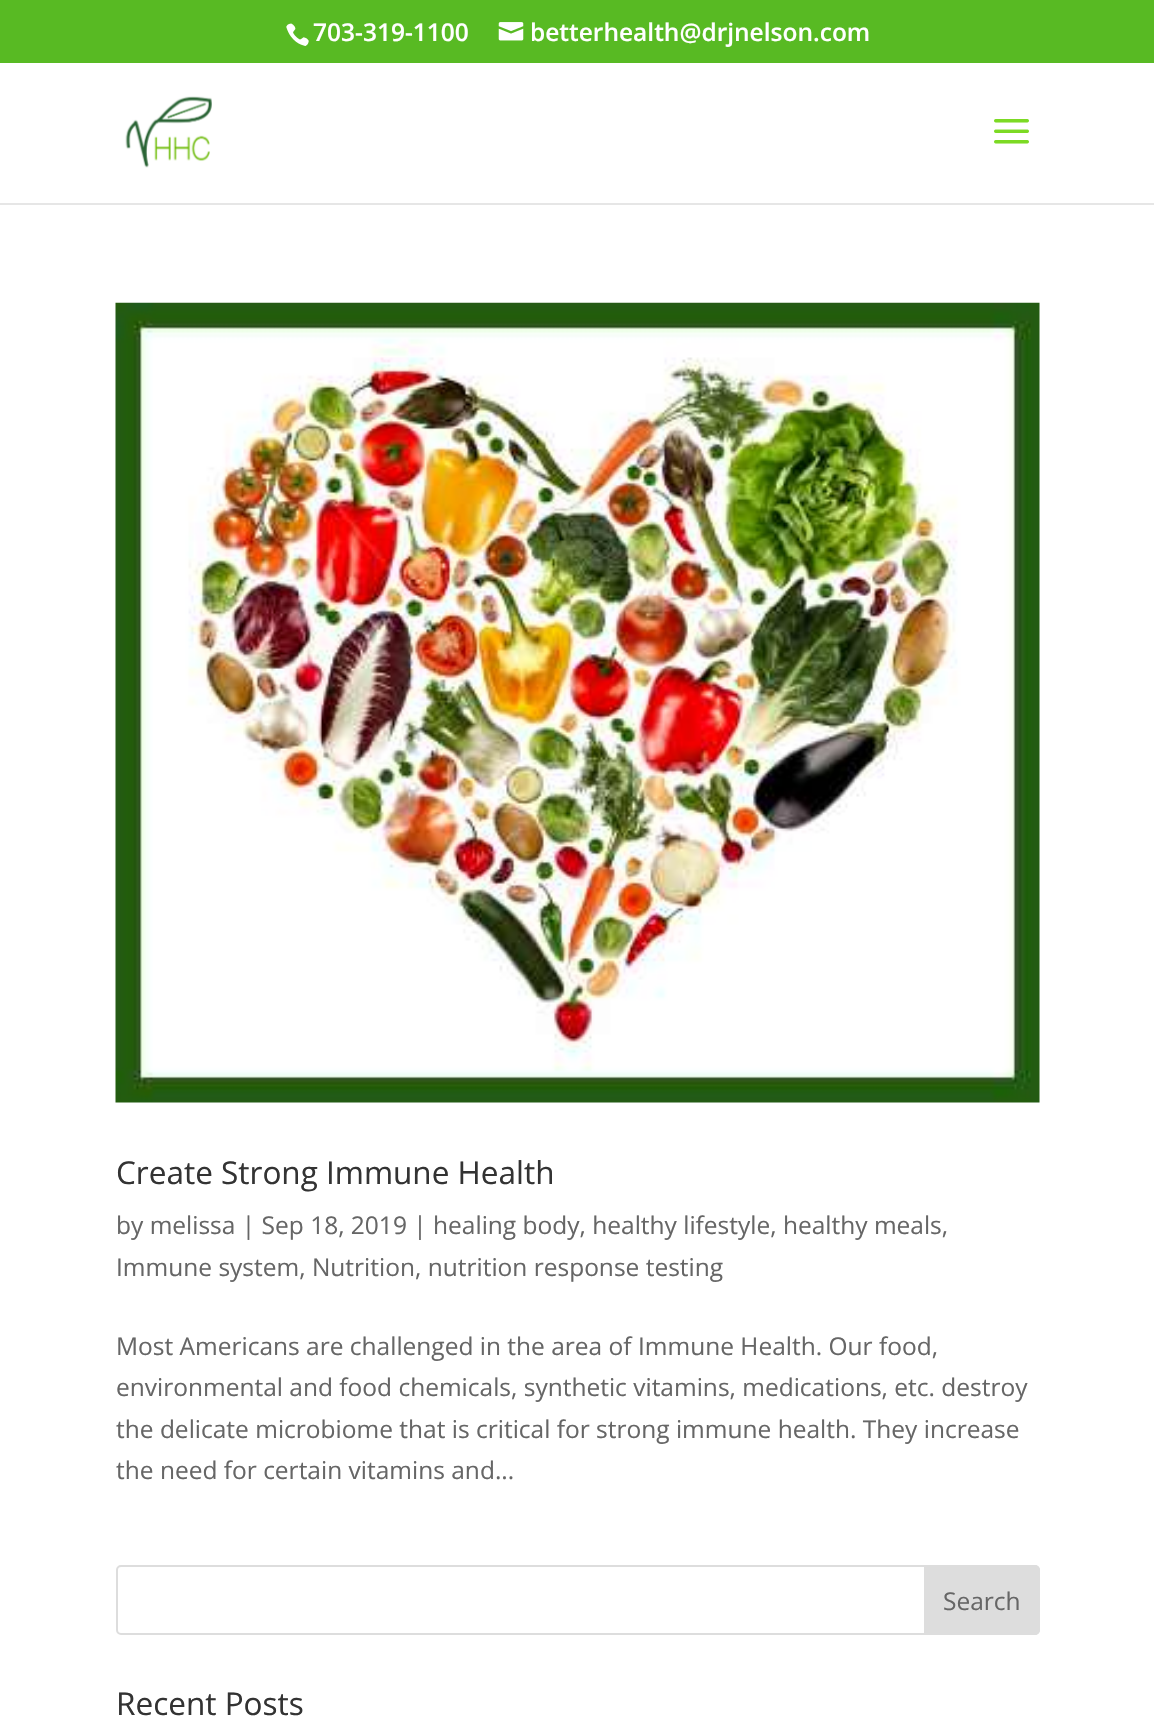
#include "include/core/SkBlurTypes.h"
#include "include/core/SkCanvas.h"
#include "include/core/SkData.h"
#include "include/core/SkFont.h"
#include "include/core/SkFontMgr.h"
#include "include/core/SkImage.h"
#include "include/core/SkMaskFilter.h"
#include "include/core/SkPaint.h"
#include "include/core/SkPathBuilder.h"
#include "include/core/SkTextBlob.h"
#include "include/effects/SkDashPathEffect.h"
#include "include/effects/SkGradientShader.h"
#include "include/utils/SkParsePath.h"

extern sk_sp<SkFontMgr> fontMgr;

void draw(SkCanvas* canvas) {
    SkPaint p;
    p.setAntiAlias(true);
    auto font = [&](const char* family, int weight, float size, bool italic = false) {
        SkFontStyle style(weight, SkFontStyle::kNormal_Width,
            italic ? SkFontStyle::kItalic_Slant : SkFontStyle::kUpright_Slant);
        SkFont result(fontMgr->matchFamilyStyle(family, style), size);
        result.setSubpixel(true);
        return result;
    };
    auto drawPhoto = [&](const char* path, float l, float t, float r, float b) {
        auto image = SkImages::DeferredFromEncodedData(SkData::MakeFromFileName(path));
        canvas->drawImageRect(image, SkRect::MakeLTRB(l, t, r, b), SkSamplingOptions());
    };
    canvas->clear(0xFFFFFFFF);
    p.setColor(0xFF58BA23);
    canvas->drawRect(SkRect::MakeLTRB(0, 0, 1154, 63), p);
    drawPhoto("media/1.png", 286, 23, 309, 46);
    auto font1 = font("Open Sans", 600, 24.5f);
    p.setColor(0xFFFFFFFF);
    canvas->drawString("703-319-1100", 313, 41, font1, p);
    drawPhoto("media/2.png", 498, 22, 524, 41);
    canvas->drawString("betterhealth@drjnelson.com", 530, 41, font1, p);
    p.setColor(0xFFE6E6E6);
    canvas->drawRect(SkRect::MakeLTRB(0, 203, 1154, 205), p);
    drawPhoto("media/3.png", 125, 96, 212, 168);
    drawPhoto("media/4.png", 994, 119, 1029, 144);
    drawPhoto("media/5.png", 115, 302, 1040, 1103);
    auto font2 = font("Open Sans", 400, 31.5f);
    p.setColor(0xFF333333);
    canvas->drawString("Create Strong Immune Health", 116, 1184, font2, p);
    auto font3 = font("Open Sans", 400, 24.5f);
    p.setColor(0xFF666666);
    {
        const struct { const char* s; float x, y; } items[] = {
            {"by melissa | Sep 18, 2019 | healing body, healthy lifestyle, healthy meals,", 116, 1234},
            {"Immune system, Nutrition, nutrition response testing", 116, 1276},
            {"Most Americans are challenged in the area of Immune Health. Our food,", 116, 1355},
            {"environmental and food chemicals, synthetic vitamins, medications, etc. destroy", 116, 1396},
            {"the delicate microbiome that is critical for strong immune health. They increase", 116, 1438},
            {"the need for certain vitamins and...", 116, 1479},
        };
        for (auto [s, x, y] : items) {
            canvas->drawString(s, x, y, font3, p);
        }
    }
    p.setStyle(SkPaint::kStroke_Style);
    p.setStrokeWidth(2);
    p.setColor(0xFFDDDDDD);
    canvas->drawRoundRect(SkRect::MakeLTRB(117, 1566, 1039, 1634), 4, 4, p);
    p.setStyle(SkPaint::kFill_Style);
    canvas->drawPath(SkPathBuilder().moveTo(925, 1566).lineTo(1035, 1566).cubicTo(1037, 1566, 1039, 1568, 1039, 1570).lineTo(1039, 1630).cubicTo(1039, 1632, 1037, 1634, 1035, 1634).lineTo(925, 1634).close().detach(), p);
    p.setStyle(SkPaint::kStroke_Style);
    canvas->drawPath(SkPathBuilder().moveTo(925, 1566).lineTo(1035, 1566).cubicTo(1037, 1566, 1039, 1568, 1039, 1570).lineTo(1039, 1630).cubicTo(1039, 1632, 1037, 1634, 1035, 1634).lineTo(925, 1634).close().detach(), p);
    p.setStyle(SkPaint::kFill_Style);
    p.setColor(0xFF666666);
    canvas->drawString("Search", 943, 1610, font3, p);
    p.setColor(0xFF333333);
    canvas->drawString("Recent Posts", 116, 1715, font2, p);
}
